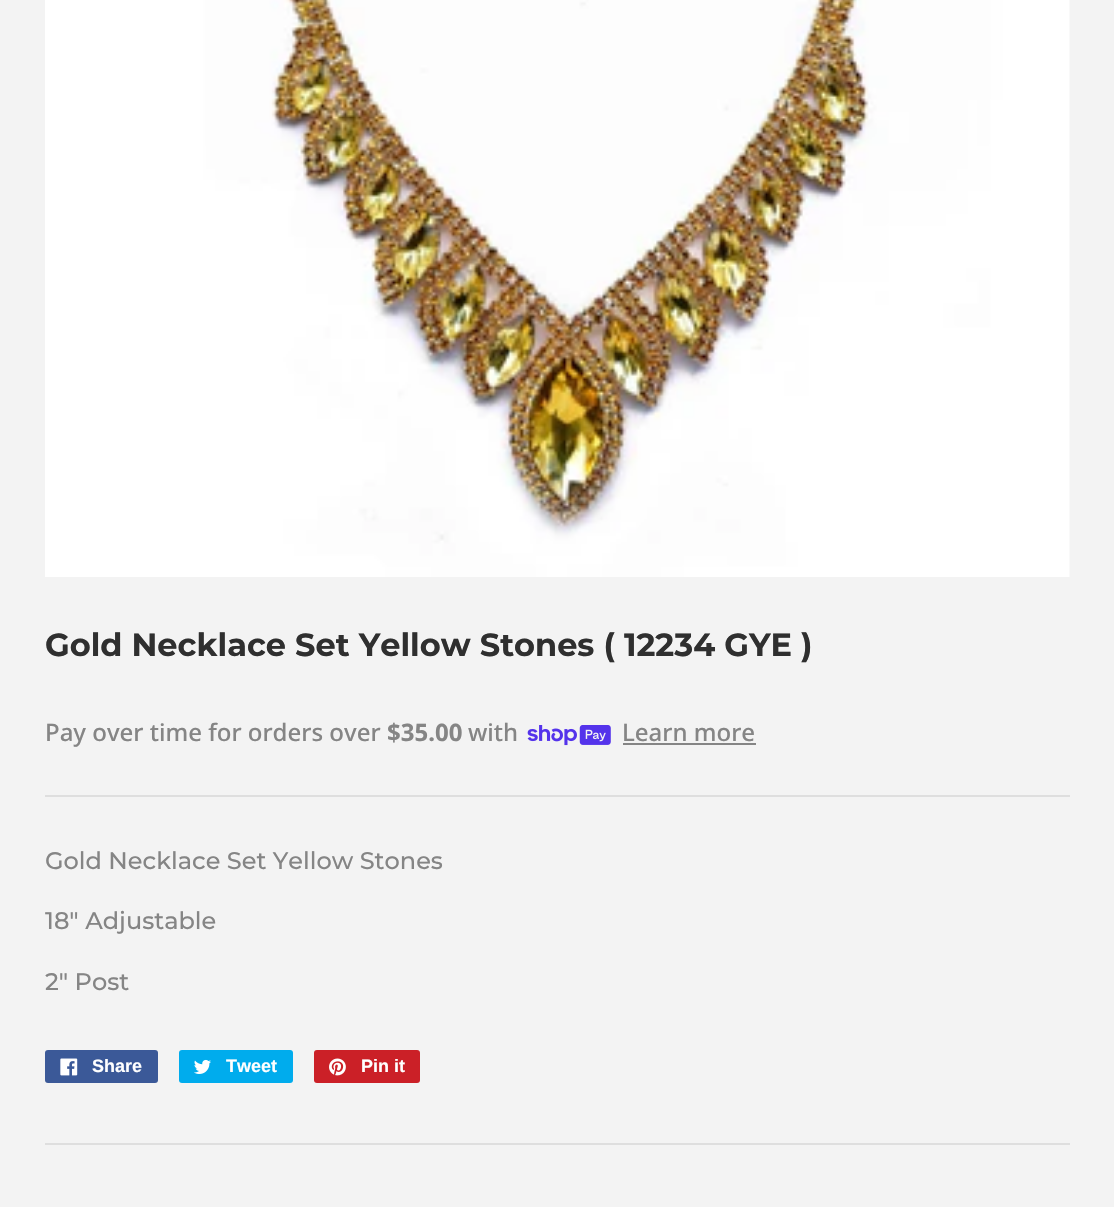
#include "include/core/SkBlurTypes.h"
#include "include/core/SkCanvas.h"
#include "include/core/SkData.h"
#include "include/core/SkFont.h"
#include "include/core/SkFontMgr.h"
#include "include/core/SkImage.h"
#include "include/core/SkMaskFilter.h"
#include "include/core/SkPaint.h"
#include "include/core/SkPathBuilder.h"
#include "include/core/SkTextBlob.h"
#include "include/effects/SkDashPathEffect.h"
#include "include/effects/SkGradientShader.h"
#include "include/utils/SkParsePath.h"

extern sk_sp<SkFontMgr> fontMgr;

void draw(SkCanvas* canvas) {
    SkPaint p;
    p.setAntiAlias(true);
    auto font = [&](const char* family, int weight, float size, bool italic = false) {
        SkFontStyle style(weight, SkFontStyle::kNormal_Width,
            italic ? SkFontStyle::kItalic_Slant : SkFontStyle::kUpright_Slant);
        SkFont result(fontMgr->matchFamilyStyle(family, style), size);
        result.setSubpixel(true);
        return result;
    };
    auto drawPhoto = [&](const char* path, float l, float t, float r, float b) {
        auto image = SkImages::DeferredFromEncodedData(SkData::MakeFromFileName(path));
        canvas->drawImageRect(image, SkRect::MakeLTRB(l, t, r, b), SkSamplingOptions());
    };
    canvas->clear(0xFFF3F3F3);
    drawPhoto("media/1.png", 45, 0, 1070, 577);
    auto font1 = font("Montserrat", 700, 32);
    p.setColor(0xFF2F2F2F);
    canvas->drawString("Gold Necklace Set Yellow Stones ( 12234 GYE )", 45, 656, font1, p);
    auto font2 = font("Noto Sans", 500, 24);
    p.setColor(0xFF858585);
    canvas->drawString("Pay over time for orders over", 45, 741, font2, p);
    auto font3 = font("Noto Sans", 700, 24);
    canvas->drawString("$35.00", 387, 741, font3, p);
    canvas->drawString("with", 468, 741, font2, p);
    drawPhoto("media/2.png", 527, 725, 611, 746);
    canvas->drawString("Learn more", 622, 741, font2, p);
    canvas->drawRect(SkRect::MakeLTRB(623, 743, 756, 745), p);
    p.setColor(0xFFDEDEDE);
    canvas->drawRect(SkRect::MakeLTRB(45, 795, 1070, 797), p);
    auto font4 = font("Montserrat", 500, 24);
    p.setColor(0xFF858585);
    {
        const struct { const char* s; float x, y; } items[] = {
            {"Gold Necklace Set Yellow Stones", 45, 869},
            {"18\" Adjustable", 45, 929},
            {"2\" Post", 45, 990},
        };
        for (auto [s, x, y] : items) {
            canvas->drawString(s, x, y, font4, p);
        }
    }
    p.setColor(0xFF3B5998);
    canvas->drawRoundRect(SkRect::MakeLTRB(45, 1050, 158, 1083), 3, 3, p);
    drawPhoto("media/3.png", 60, 1058, 78, 1076);
    auto font5 = font("Liberation Sans", 700, 18);
    p.setColor(0xFFFFFFFF);
    canvas->drawString("Share", 92, 1072, font5, p);
    p.setColor(0xFF00ACED);
    canvas->drawRoundRect(SkRect::MakeLTRB(179, 1050, 293, 1083), 3, 3, p);
    drawPhoto("media/4.png", 194, 1059, 211, 1074);
    p.setColor(0xFFFFFFFF);
    canvas->drawString("Tweet", 226, 1072, font5, p);
    p.setColor(0xFFCB2027);
    canvas->drawRoundRect(SkRect::MakeLTRB(314, 1050, 420, 1083), 3, 3, p);
    drawPhoto("media/5.png", 329, 1058, 346, 1076);
    p.setColor(0xFFFFFFFF);
    canvas->drawString("Pin it", 361, 1072, font5, p);
    p.setColor(0xFFDEDEDE);
    canvas->drawRect(SkRect::MakeLTRB(45, 1143, 1070, 1145), p);
}
